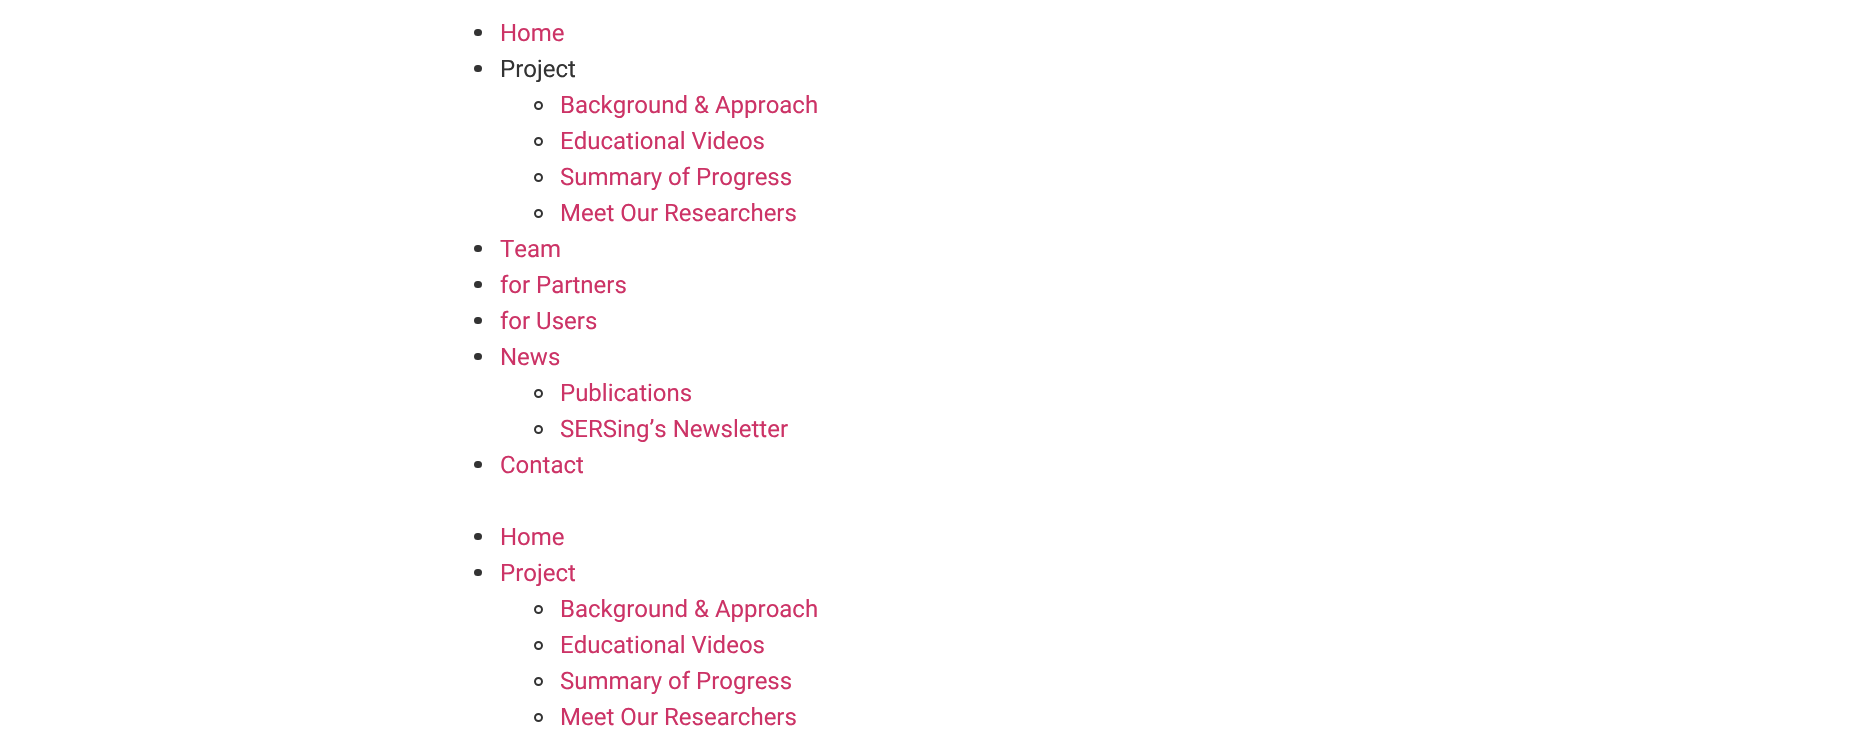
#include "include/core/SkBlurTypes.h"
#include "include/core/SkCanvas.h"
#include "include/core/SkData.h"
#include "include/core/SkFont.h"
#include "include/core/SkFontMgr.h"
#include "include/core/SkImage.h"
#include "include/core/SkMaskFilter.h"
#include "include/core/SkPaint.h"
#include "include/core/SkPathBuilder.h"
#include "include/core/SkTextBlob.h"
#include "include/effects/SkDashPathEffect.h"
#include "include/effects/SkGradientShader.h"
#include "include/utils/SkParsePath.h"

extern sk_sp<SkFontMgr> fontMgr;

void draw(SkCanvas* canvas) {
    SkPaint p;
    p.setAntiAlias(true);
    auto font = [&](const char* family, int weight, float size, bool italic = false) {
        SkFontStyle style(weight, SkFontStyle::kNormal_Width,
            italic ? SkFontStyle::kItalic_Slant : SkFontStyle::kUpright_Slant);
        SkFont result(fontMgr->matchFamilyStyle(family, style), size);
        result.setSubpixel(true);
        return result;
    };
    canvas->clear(0xFFFFFFFF);
    p.setColor(0xFF333333);
    canvas->drawRoundRect(SkRect::MakeLTRB(474, 29, 482, 36), 3.5f, 3.5f, p);
    auto font1 = font("Roboto", 400, 24);
    p.setColor(0xFFCC3366);
    canvas->drawString("Home", 500, 41, font1, p);
    p.setColor(0xFF333333);
    canvas->drawRoundRect(SkRect::MakeLTRB(474, 65, 482, 72), 3.5f, 3.5f, p);
    canvas->drawString("Project", 500, 77, font1, p);
    p.setStyle(SkPaint::kStroke_Style);
    p.setStrokeWidth(2);
    canvas->drawCircle(538.5f, 105.5f, 3.5f, p);
    p.setStyle(SkPaint::kFill_Style);
    p.setColor(0xFFCC3366);
    canvas->drawString("Background & Approach", 560, 113, font1, p);
    p.setStyle(SkPaint::kStroke_Style);
    p.setColor(0xFF333333);
    canvas->drawCircle(538.5f, 141.5f, 3.5f, p);
    p.setStyle(SkPaint::kFill_Style);
    p.setColor(0xFFCC3366);
    canvas->drawString("Educational Videos", 560, 149, font1, p);
    p.setStyle(SkPaint::kStroke_Style);
    p.setColor(0xFF333333);
    canvas->drawCircle(538.5f, 177.5f, 3.5f, p);
    p.setStyle(SkPaint::kFill_Style);
    p.setColor(0xFFCC3366);
    canvas->drawString("Summary of Progress", 560, 185, font1, p);
    p.setStyle(SkPaint::kStroke_Style);
    p.setColor(0xFF333333);
    canvas->drawCircle(538.5f, 213.5f, 3.5f, p);
    p.setStyle(SkPaint::kFill_Style);
    p.setColor(0xFFCC3366);
    canvas->drawString("Meet Our Researchers", 560, 221, font1, p);
    p.setColor(0xFF333333);
    canvas->drawRoundRect(SkRect::MakeLTRB(474, 245, 482, 252), 3.5f, 3.5f, p);
    p.setColor(0xFFCC3366);
    canvas->drawString("Team", 500, 257, font1, p);
    p.setColor(0xFF333333);
    canvas->drawRoundRect(SkRect::MakeLTRB(474, 281, 482, 288), 3.5f, 3.5f, p);
    p.setColor(0xFFCC3366);
    canvas->drawString("for Partners", 500, 293, font1, p);
    p.setColor(0xFF333333);
    canvas->drawRoundRect(SkRect::MakeLTRB(474, 317, 482, 324), 3.5f, 3.5f, p);
    p.setColor(0xFFCC3366);
    canvas->drawString("for Users", 500, 329, font1, p);
    p.setColor(0xFF333333);
    canvas->drawRoundRect(SkRect::MakeLTRB(474, 353, 482, 360), 3.5f, 3.5f, p);
    p.setColor(0xFFCC3366);
    canvas->drawString("News", 500, 365, font1, p);
    p.setStyle(SkPaint::kStroke_Style);
    p.setColor(0xFF333333);
    canvas->drawCircle(538.5f, 393.5f, 3.5f, p);
    p.setStyle(SkPaint::kFill_Style);
    p.setColor(0xFFCC3366);
    canvas->drawString("Publications", 560, 401, font1, p);
    p.setStyle(SkPaint::kStroke_Style);
    p.setColor(0xFF333333);
    canvas->drawCircle(538.5f, 429.5f, 3.5f, p);
    p.setStyle(SkPaint::kFill_Style);
    p.setColor(0xFFCC3366);
    canvas->drawString("SERSing’s Newsletter", 560, 437, font1, p);
    p.setColor(0xFF333333);
    canvas->drawRoundRect(SkRect::MakeLTRB(474, 461, 482, 468), 3.5f, 3.5f, p);
    p.setColor(0xFFCC3366);
    canvas->drawString("Contact", 500, 473, font1, p);
    p.setColor(0xFF333333);
    canvas->drawRoundRect(SkRect::MakeLTRB(474, 533, 482, 540), 3.5f, 3.5f, p);
    p.setColor(0xFFCC3366);
    canvas->drawString("Home", 500, 545, font1, p);
    p.setColor(0xFF333333);
    canvas->drawRoundRect(SkRect::MakeLTRB(474, 569, 482, 576), 3.5f, 3.5f, p);
    p.setColor(0xFFCC3366);
    canvas->drawString("Project", 500, 581, font1, p);
    p.setStyle(SkPaint::kStroke_Style);
    p.setColor(0xFF333333);
    canvas->drawCircle(538.5f, 609.5f, 3.5f, p);
    p.setStyle(SkPaint::kFill_Style);
    p.setColor(0xFFCC3366);
    canvas->drawString("Background & Approach", 560, 617, font1, p);
    p.setStyle(SkPaint::kStroke_Style);
    p.setColor(0xFF333333);
    canvas->drawCircle(538.5f, 645.5f, 3.5f, p);
    p.setStyle(SkPaint::kFill_Style);
    p.setColor(0xFFCC3366);
    canvas->drawString("Educational Videos", 560, 653, font1, p);
    p.setStyle(SkPaint::kStroke_Style);
    p.setColor(0xFF333333);
    canvas->drawCircle(538.5f, 681.5f, 3.5f, p);
    p.setStyle(SkPaint::kFill_Style);
    p.setColor(0xFFCC3366);
    canvas->drawString("Summary of Progress", 560, 689, font1, p);
    p.setStyle(SkPaint::kStroke_Style);
    p.setColor(0xFF333333);
    canvas->drawCircle(538.5f, 717.5f, 3.5f, p);
    p.setStyle(SkPaint::kFill_Style);
    p.setColor(0xFFCC3366);
    canvas->drawString("Meet Our Researchers", 560, 725, font1, p);
}
